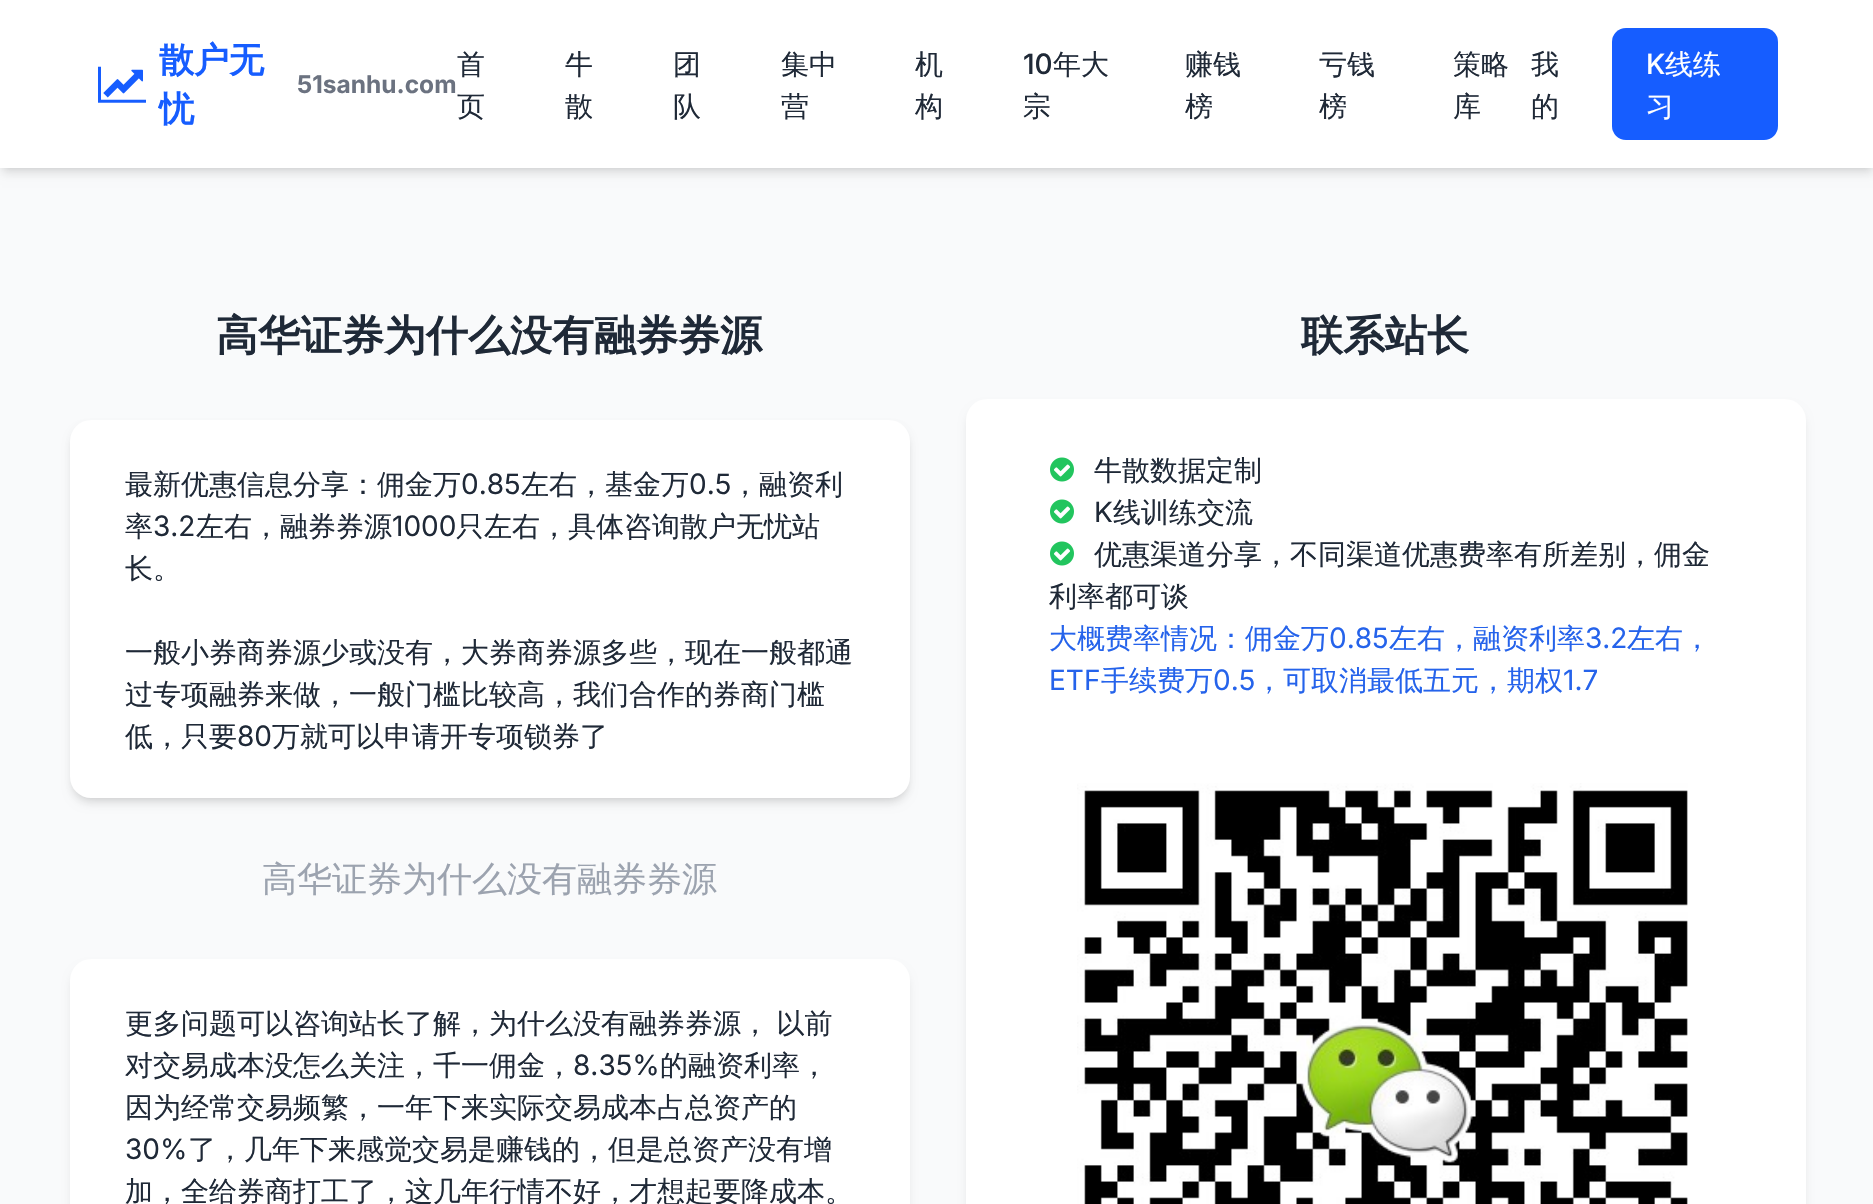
#include "include/core/SkBlurTypes.h"
#include "include/core/SkCanvas.h"
#include "include/core/SkData.h"
#include "include/core/SkFont.h"
#include "include/core/SkFontMgr.h"
#include "include/core/SkImage.h"
#include "include/core/SkMaskFilter.h"
#include "include/core/SkPaint.h"
#include "include/core/SkPathBuilder.h"
#include "include/core/SkTextBlob.h"
#include "include/effects/SkDashPathEffect.h"
#include "include/effects/SkGradientShader.h"
#include "include/utils/SkParsePath.h"

extern sk_sp<SkFontMgr> fontMgr;

void draw(SkCanvas* canvas) {
    SkPaint p;
    p.setAntiAlias(true);
    auto font = [&](const char* family, int weight, float size, bool italic = false) {
        SkFontStyle style(weight, SkFontStyle::kNormal_Width,
            italic ? SkFontStyle::kItalic_Slant : SkFontStyle::kUpright_Slant);
        SkFont result(fontMgr->matchFamilyStyle(family, style), size);
        result.setSubpixel(true);
        return result;
    };
    auto drawTracked = [&](const char* s, float x, float y, const SkFont& font, const SkPaint& ink, float letter, float word) {
        std::vector<SkGlyphID> glyphs(font.countText(s, strlen(s), SkTextEncoding::kUTF8));
        std::vector<float> xs(glyphs.size());
        font.textToGlyphs(s, strlen(s), SkTextEncoding::kUTF8, glyphs);
        font.getXPos(glyphs, xs, x);
        float extra = 0;
        for (size_t i = 0; i < glyphs.size(); i++) {
            xs[i] += extra;
            extra += letter + word * (glyphs[i] == font.unicharToGlyph(' '));
        }
        canvas->drawTextBlob(SkTextBlob::MakeFromPosHGlyphs(glyphs, xs, y, font), 0, 0, ink);
    };
    auto drawPhoto = [&](const char* path, float l, float t, float r, float b) {
        auto image = SkImages::DeferredFromEncodedData(SkData::MakeFromFileName(path));
        canvas->drawImageRect(image, SkRect::MakeLTRB(l, t, r, b), SkSamplingOptions());
    };
    canvas->clear(0xFFF9FAFB);
    p.setColor(0x1A000000);
    p.setMaskFilter(SkMaskFilter::MakeBlur(kNormal_SkBlurStyle, 3.5f));
    canvas->drawRect(SkRect::MakeLTRB(4, 7, 1871, 168), p);
    p.setMaskFilter(nullptr);
    p.setMaskFilter(SkMaskFilter::MakeBlur(kNormal_SkBlurStyle, 5));
    canvas->drawRect(SkRect::MakeLTRB(2, 9, 1873, 173), p);
    p.setMaskFilter(nullptr);
    p.setColor(0xFFFFFFFF);
    canvas->drawRect(SkRect::MakeLTRB(0, 0, 1873, 168), p);
    drawPhoto("media/1.png", 98, 66, 146, 103);
    auto font1 = font("WenQuanYi Zen Hei", 700, 35);
    p.setColor(0xFF165DFF);
    canvas->drawString("散户无", 159, 72, font1, p);
    canvas->drawString("忧", 159, 121, font1, p);
    auto font2 = font("Inter", 700, 24.5f);
    p.setColor(0xFF6B7280);
    canvas->drawString("51sanhu.com", 297, 93, font2, p);
    auto font3 = font("WenQuanYi Zen Hei", 500, 28);
    p.setColor(0xFF1F2937);
    {
        const struct { const char* s; float x, y; } items[] = {
            {"首", 457, 74},
            {"页", 457, 116},
            {"牛", 565, 74},
            {"散", 565, 116},
            {"团", 673, 74},
            {"队", 673, 116},
            {"集中", 781, 74},
            {"营", 781, 116},
            {"机", 915, 74},
            {"构", 915, 116},
        };
        for (auto [s, x, y] : items) {
            canvas->drawString(s, x, y, font3, p);
        }
    }
    auto font4 = font("Inter", 500, 28);
    canvas->drawString("10", 1023, 74, font4, p);
    {
        const struct { const char* s; float x, y; } items[] = {
            {"年大", 1053, 74},
            {"宗", 1023, 116},
            {"赚钱", 1185, 74},
            {"榜", 1185, 116},
            {"亏钱", 1319, 74},
            {"榜", 1319, 116},
            {"策略", 1453, 74},
            {"库", 1453, 116},
            {"我", 1531, 74},
            {"的", 1531, 116},
        };
        for (auto [s, x, y] : items) {
            canvas->drawString(s, x, y, font3, p);
        }
    }
    p.setColor(0xFF165DFF);
    canvas->drawRoundRect(SkRect::MakeLTRB(1612, 28, 1778, 140), 14, 14, p);
    p.setColor(0xFFFFFFFF);
    canvas->drawString("K", 1646, 74, font4, p);
    canvas->drawString("线练", 1665, 74, font3, p);
    canvas->drawString("习", 1646, 116, font3, p);
    auto font5 = font("WenQuanYi Zen Hei", 700, 42);
    p.setColor(0xFF1F2937);
    canvas->drawString("高华证券为什么没有融券券源", 216, 350, font5, p);
    p.setColor(0x1A000000);
    p.setMaskFilter(SkMaskFilter::MakeBlur(kNormal_SkBlurStyle, 3.5f));
    canvas->drawRoundRect(SkRect::MakeLTRB(74, 427, 907, 798), 18, 18, p);
    p.setMaskFilter(nullptr);
    p.setMaskFilter(SkMaskFilter::MakeBlur(kNormal_SkBlurStyle, 5));
    canvas->drawRoundRect(SkRect::MakeLTRB(72, 429, 908, 803), 19, 19, p);
    p.setMaskFilter(nullptr);
    p.setColor(0xFFFFFFFF);
    canvas->drawRoundRect(SkRect::MakeLTRB(70, 420, 910, 798), 21, 21, p);
    p.setColor(0xFF1F2937);
    canvas->drawString("最新优惠信息分享：佣金万", 125, 494, font3, p);
    auto font6 = font("Inter", 400, 28);
    canvas->drawString("0.85", 461, 494, font6, p);
    canvas->drawString("左右，基金万", 521, 494, font3, p);
    canvas->drawString("0.5", 689, 494, font6, p);
    canvas->drawString("，融资利", 731, 494, font3, p);
    canvas->drawString("率", 125, 536, font3, p);
    canvas->drawString("3.2", 153, 536, font6, p);
    canvas->drawString("左右，融券券源", 196, 536, font3, p);
    canvas->drawString("1000", 392, 536, font6, p);
    {
        const struct { const char* s; float x, y; } items[] = {
            {"只左右，具体咨询散户无忧站", 456, 536},
            {"长。", 125, 578},
            {"一般小券商券源少或没有，大券商券源多些，现在一般都通", 125, 662},
            {"过专项融券来做，一般门槛比较高，我们合作的券商门槛", 125, 704},
            {"低，只要", 125, 746},
        };
        for (auto [s, x, y] : items) {
            canvas->drawString(s, x, y, font3, p);
        }
    }
    canvas->drawString("80", 237, 746, font6, p);
    canvas->drawString("万就可以申请开专项锁券了", 272, 746, font3, p);
    auto font7 = font("WenQuanYi Zen Hei", 500, 35);
    p.setColor(0xFF9CA3AF);
    canvas->drawString("高华证券为什么没有融券券源", 262, 891, font7, p);
    p.setColor(0x1A000000);
    p.setMaskFilter(SkMaskFilter::MakeBlur(kNormal_SkBlurStyle, 5));
    canvas->drawRoundRect(SkRect::MakeLTRB(72, 968, 908, 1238), 19, 19, p);
    p.setMaskFilter(nullptr);
    p.setColor(0xFFFFFFFF);
    canvas->drawRoundRect(SkRect::MakeLTRB(70, 959, 910, 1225), 21, 21, p);
    p.setColor(0xFF1F2937);
    canvas->drawString("更多问题可以咨询站长了解，为什么没有融券券源", 125, 1033, font3, p);
    drawTracked("， 以前", 741, 1033, font3, p, 0, -1);
    canvas->drawString("对交易成本没怎么关注，千一佣金，", 125, 1075, font3, p);
    canvas->drawString("8.35%", 573, 1075, font6, p);
    canvas->drawString("的融资利率，", 660, 1075, font3, p);
    canvas->drawString("因为经常交易频繁，一年下来实际交易成本占总资产的", 125, 1117, font3, p);
    canvas->drawString("30%", 125, 1159, font6, p);
    canvas->drawString("了，几年下来感觉交易是赚钱的，但是总资产没有增", 188, 1159, font3, p);
    canvas->drawString("加，全给券商打工了，这几年行情不好，才想起要降成本。", 125, 1201, font3, p);
    canvas->drawString("联系站长", 1301, 350, font5, p);
    p.setColor(0x1A000000);
    p.setMaskFilter(SkMaskFilter::MakeBlur(kNormal_SkBlurStyle, 5));
    canvas->drawRoundRect(SkRect::MakeLTRB(968, 408, 1804, 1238), 19, 19, p);
    p.setMaskFilter(nullptr);
    p.setColor(0xFFFFFFFF);
    canvas->drawRoundRect(SkRect::MakeLTRB(966, 399, 1806, 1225), 21, 21, p);
    drawPhoto("media/2.png", 1050, 457, 1074, 482);
    p.setColor(0xFF1F2937);
    canvas->drawString("牛散数据定制", 1094, 480, font3, p);
    drawPhoto("media/2.png", 1050, 499, 1074, 524);
    canvas->drawString("K", 1094, 522, font6, p);
    canvas->drawString("线训练交流", 1113, 522, font3, p);
    drawPhoto("media/2.png", 1050, 541, 1074, 566);
    canvas->drawString("优惠渠道分享，不同渠道优惠费率有所差别，佣金", 1094, 564, font3, p);
    canvas->drawString("利率都可谈", 1049, 606, font3, p);
    p.setColor(0xFF2563EB);
    canvas->drawString("大概费率情况：佣金万", 1049, 648, font3, p);
    canvas->drawString("0.85", 1329, 648, font6, p);
    canvas->drawString("左右，融资利率", 1389, 648, font3, p);
    canvas->drawString("3.2", 1585, 648, font6, p);
    canvas->drawString("左右，", 1627, 648, font3, p);
    canvas->drawString("ETF", 1049, 690, font6, p);
    canvas->drawString("手续费万", 1101, 690, font3, p);
    canvas->drawString("0.5", 1213, 690, font6, p);
    canvas->drawString("，可取消最低五元，期权", 1255, 690, font3, p);
    canvas->drawString("1.7", 1563, 690, font6, p);
    drawPhoto("media/3.png", 1077, 783, 1688, 1204);
}
